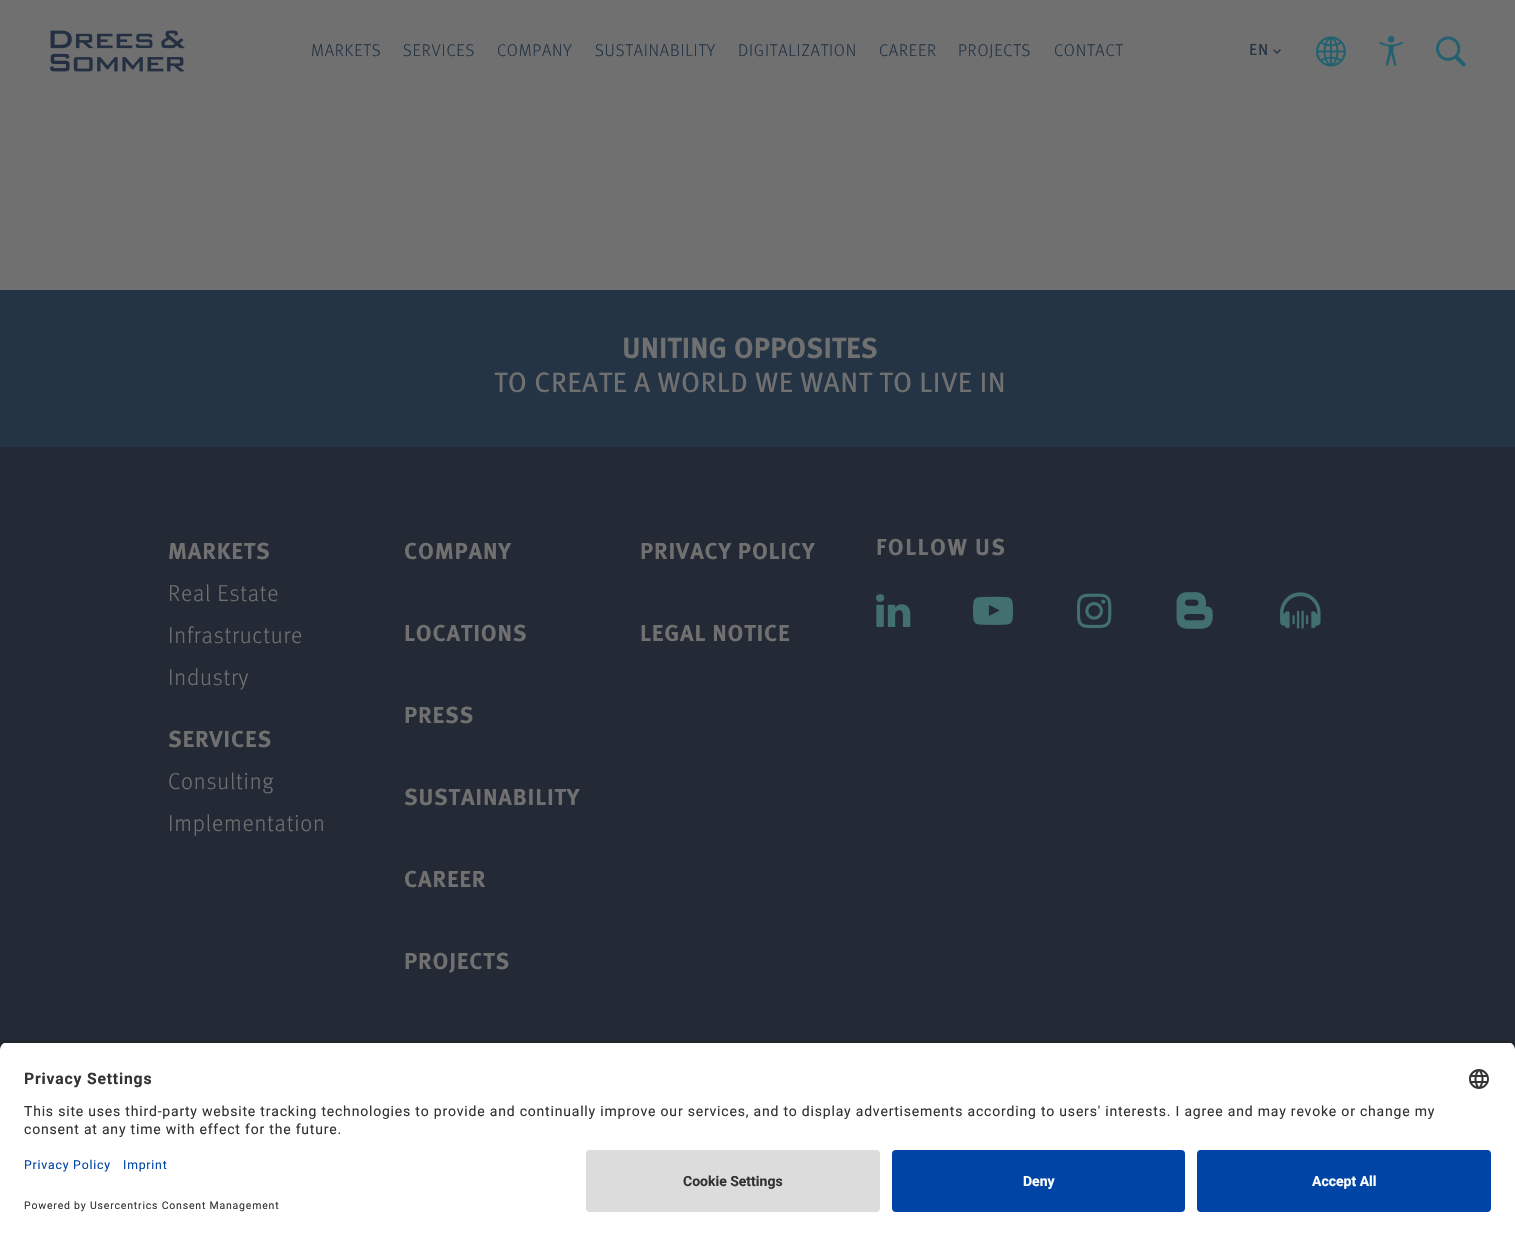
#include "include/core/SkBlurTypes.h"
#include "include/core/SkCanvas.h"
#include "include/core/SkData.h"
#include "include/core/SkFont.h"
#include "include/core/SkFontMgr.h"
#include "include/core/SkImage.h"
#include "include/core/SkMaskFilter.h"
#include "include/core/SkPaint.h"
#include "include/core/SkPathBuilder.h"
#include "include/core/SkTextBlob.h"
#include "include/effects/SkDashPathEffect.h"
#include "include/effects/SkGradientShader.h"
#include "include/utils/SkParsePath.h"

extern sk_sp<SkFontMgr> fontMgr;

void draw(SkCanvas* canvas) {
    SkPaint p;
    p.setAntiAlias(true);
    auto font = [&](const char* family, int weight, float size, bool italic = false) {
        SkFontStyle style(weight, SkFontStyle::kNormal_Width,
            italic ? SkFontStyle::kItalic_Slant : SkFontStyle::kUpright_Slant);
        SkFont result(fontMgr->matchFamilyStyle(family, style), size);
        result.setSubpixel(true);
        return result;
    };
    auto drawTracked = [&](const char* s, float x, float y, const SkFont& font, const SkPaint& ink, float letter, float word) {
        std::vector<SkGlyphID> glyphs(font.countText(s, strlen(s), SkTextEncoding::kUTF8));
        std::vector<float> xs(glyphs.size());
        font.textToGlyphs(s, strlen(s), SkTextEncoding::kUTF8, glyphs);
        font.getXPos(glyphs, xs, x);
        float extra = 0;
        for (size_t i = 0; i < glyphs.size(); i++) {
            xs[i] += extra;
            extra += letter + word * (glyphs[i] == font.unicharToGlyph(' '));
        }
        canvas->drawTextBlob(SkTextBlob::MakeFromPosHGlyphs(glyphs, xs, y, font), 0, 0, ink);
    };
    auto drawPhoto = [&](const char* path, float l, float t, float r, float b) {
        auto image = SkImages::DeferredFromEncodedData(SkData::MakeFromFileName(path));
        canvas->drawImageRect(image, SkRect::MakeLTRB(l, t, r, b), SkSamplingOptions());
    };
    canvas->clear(0xFF707070);
    drawPhoto("media/1.png", 50, 30, 185, 72);
    auto font1 = font("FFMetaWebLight", 400, 17);
    p.setColor(0xFF243445);
    {
        const struct { const char* s; float x, y; } items[] = {
            {"MARKETS", 311, 56},
            {"SERVICES", 403, 56},
            {"COMPANY", 497, 56},
            {"SUSTAINABILITY", 595, 56},
            {"DIGITALIZATION", 738, 56},
            {"CAREER", 879, 56},
            {"PROJECTS", 958, 56},
            {"CONTACT", 1054, 56},
        };
        for (auto [s, x, y] : items) {
            drawTracked(s, x, y, font1, p, 0.8f, 0);
        }
    }
    auto font2 = font("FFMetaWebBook", 400, 16);
    drawTracked("EN", 1249, 55, font2, p, 0.8f, 0);
    drawPhoto("media/2.png", 1273, 49, 1281, 54);
    drawPhoto("media/3.png", 1316, 36, 1346, 67);
    drawPhoto("media/4.png", 1379, 36, 1403, 66);
    drawPhoto("media/5.png", 1436, 36, 1466, 67);
    p.setColor(0xFF242A35);
    canvas->drawRect(SkRect::MakeLTRB(0, 447, 1515, 1050), p);
    p.setColor(0xFF243445);
    canvas->drawRect(SkRect::MakeLTRB(0, 290, 1515, 447), p);
    auto font3 = font("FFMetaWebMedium", 700, 28);
    p.setColor(0xFF707070);
    drawTracked("UNITING OPPOSITES", 622, 358, font3, p, 0.5f, 0);
    auto font4 = font("FFMetaWebBook", 400, 28);
    drawTracked("TO CREATE A WORLD WE WANT TO LIVE IN", 494, 392, font4, p, 0.5f, 0);
    auto font5 = font("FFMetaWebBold", 400, 23);
    drawTracked("MARKETS", 168, 559, font5, p, 0.8f, 0);
    auto font6 = font("FFMetaWebLight", 400, 23);
    {
        const struct { const char* s; float x, y; } items[] = {
            {"Real Estate", 168, 601},
            {"Infrastructure", 168, 643},
            {"Industry", 168, 685},
        };
        for (auto [s, x, y] : items) {
            drawTracked(s, x, y, font6, p, 0.8f, 0);
        }
    }
    drawTracked("SERVICES", 168, 747, font5, p, 0.8f, 0);
    drawTracked("Consulting", 168, 789, font6, p, 0.8f, 0);
    drawTracked("Implementation", 168, 831, font6, p, 0.8f, 0);
    {
        const struct { const char* s; float x, y; } items[] = {
            {"COMPANY", 404, 559},
            {"LOCATIONS", 404, 641},
            {"PRESS", 404, 723},
            {"SUSTAINABILITY", 404, 805},
            {"CAREER", 404, 887},
            {"PROJECTS", 404, 969},
            {"PRIVACY POLICY", 640, 559},
            {"LEGAL NOTICE", 640, 641},
        };
        for (auto [s, x, y] : items) {
            drawTracked(s, x, y, font5, p, 0.8f, 0);
        }
    }
    drawTracked("FOLLOW US", 876, 555, font5, p, 1.5f, 0);
    drawPhoto("media/6.png", 876, 594, 911, 627);
    drawPhoto("media/7.png", 973, 596, 1013, 625);
    drawPhoto("media/8.png", 1077, 593, 1112, 628);
    drawPhoto("media/9.png", 1176, 592, 1213, 629);
    drawPhoto("media/10.png", 1280, 592, 1321, 629);
    p.setColor(0xCC000000);
    p.setMaskFilter(SkMaskFilter::MakeBlur(kNormal_SkBlurStyle, 3.5f));
    canvas->drawRoundRect(SkRect::MakeLTRB(0, 1045, 1515, 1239), 8, 8, p);
    p.setMaskFilter(nullptr);
    canvas->save();
    canvas->clipPath(SkPathBuilder().moveTo(8, 1042).lineTo(1507, 1042).cubicTo(1511.5f, 1042, 1515, 1045.5f, 1515, 1050).lineTo(1515, 1142).lineTo(0, 1142).lineTo(0, 1050).cubicTo(0, 1045.5f, 3.5f, 1042, 8, 1042).close().detach(), true);
    p.setColor(0xFFFFFFFF);
    canvas->drawRect(SkRect::MakeLTRB(0, 1043, 1515, 1142), p);
    canvas->restore();
    auto font7 = font("Roboto", 700, 15.75f);
    p.setColor(0xFF333333);
    drawTracked("Privacy Settings", 24, 1084, font7, p, 0.8f, 0);
    drawPhoto("media/11.png", 1469, 1069, 1489, 1089);
    auto font8 = font("Roboto", 400, 14);
    drawTracked("This site uses third-party website tracking technologies to provide and continually improve our services, and to display advertisements according to users' interests. I agree and may revoke or change my", 24, 1116, font8, p, 0.8f, 0);
    drawTracked("consent at any time with effect for the future.", 24, 1134, font8, p, 0.8f, 0);
    p.setColor(0xFFFFFFFF);
    canvas->drawRect(SkRect::MakeLTRB(0, 1142, 1515, 1236), p);
    auto font9 = font("Roboto", 400, 12.25f);
    p.setColor(0xFF0045A5);
    drawTracked("Privacy Policy", 24, 1169, font9, p, 0.8f, 0);
    drawTracked("Imprint", 123, 1169, font9, p, 0.8f, 0);
    auto font10 = font("Roboto", 400, 10.5f);
    p.setColor(0xFF333333);
    drawTracked("Powered by Usercentrics Consent Management", 24, 1209, font10, p, 0.8f, 0);
    p.setColor(0xFFDCDCDC);
    canvas->drawRoundRect(SkRect::MakeLTRB(586, 1150, 880, 1212), 4, 4, p);
    auto font11 = font("Roboto", 700, 14);
    p.setColor(0xFF333333);
    canvas->drawString("Cookie Settings", 683, 1186, font11, p);
    p.setColor(0xFF0045A5);
    canvas->drawRoundRect(SkRect::MakeLTRB(892, 1150, 1185, 1212), 4, 4, p);
    p.setColor(0xFFFFFFFF);
    canvas->drawString("Deny", 1023, 1186, font11, p);
    p.setColor(0xFF0045A5);
    canvas->drawRoundRect(SkRect::MakeLTRB(1197, 1150, 1491, 1212), 4, 4, p);
    p.setColor(0xFFFFFFFF);
    canvas->drawString("Accept All", 1312, 1186, font11, p);
}
